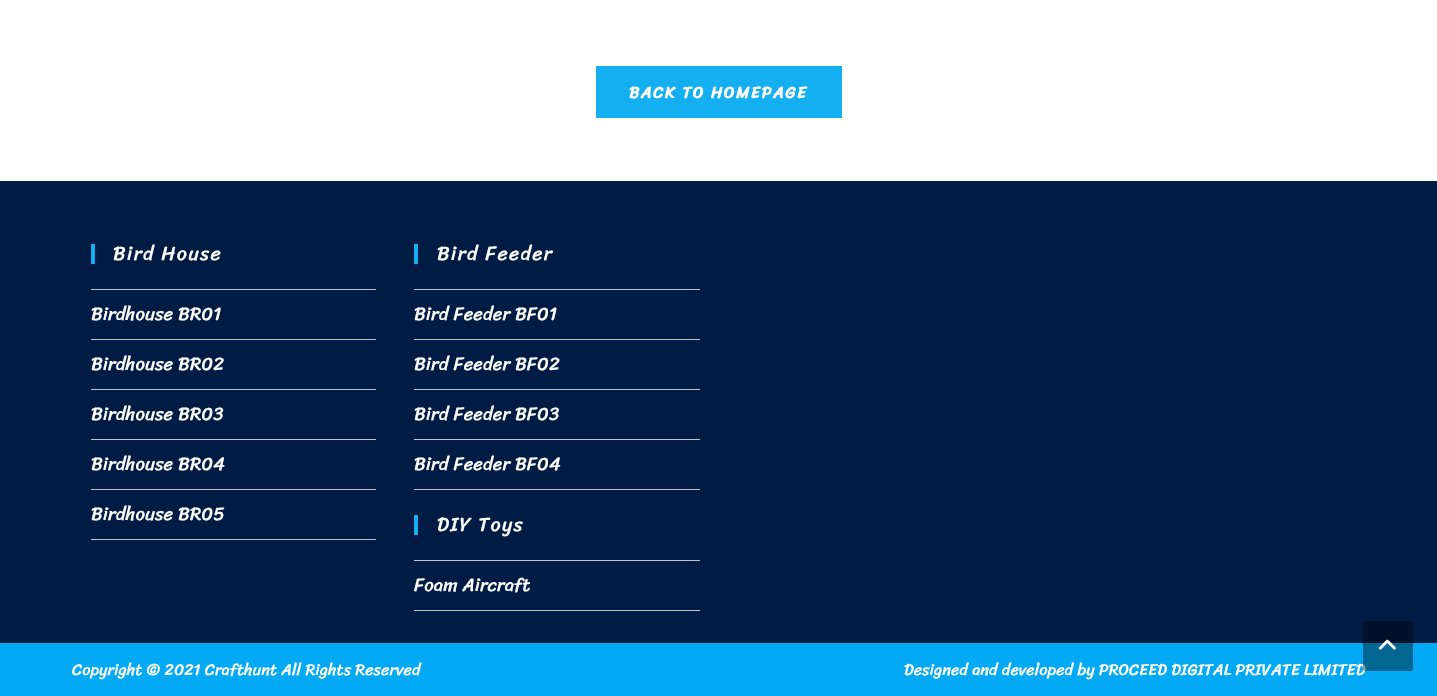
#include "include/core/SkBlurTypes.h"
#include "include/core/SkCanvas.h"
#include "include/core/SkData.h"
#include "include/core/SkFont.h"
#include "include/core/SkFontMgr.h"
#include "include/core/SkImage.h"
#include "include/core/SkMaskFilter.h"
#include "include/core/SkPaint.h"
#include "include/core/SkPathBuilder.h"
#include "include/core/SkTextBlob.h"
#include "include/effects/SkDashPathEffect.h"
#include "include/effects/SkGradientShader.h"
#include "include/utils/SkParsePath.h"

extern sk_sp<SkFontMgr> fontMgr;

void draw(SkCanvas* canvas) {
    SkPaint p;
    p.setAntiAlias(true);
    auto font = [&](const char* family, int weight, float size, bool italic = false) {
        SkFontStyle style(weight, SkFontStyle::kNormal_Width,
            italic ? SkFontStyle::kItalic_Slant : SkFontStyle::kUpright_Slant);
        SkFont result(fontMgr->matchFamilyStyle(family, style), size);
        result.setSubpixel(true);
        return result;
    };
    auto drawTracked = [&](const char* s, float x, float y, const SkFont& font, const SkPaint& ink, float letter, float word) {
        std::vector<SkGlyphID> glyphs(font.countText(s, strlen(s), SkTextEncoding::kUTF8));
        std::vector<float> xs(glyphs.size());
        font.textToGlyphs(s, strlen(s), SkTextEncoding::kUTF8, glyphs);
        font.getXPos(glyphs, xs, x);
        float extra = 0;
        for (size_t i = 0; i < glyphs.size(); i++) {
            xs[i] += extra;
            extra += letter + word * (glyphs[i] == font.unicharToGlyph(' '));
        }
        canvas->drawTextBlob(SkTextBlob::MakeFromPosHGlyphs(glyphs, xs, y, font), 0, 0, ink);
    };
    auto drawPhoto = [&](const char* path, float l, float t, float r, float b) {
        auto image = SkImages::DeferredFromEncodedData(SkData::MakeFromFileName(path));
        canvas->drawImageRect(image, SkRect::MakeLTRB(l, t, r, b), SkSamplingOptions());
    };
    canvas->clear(0xFFFFFFFF);
    p.setColor(0xFF13AFF0);
    canvas->drawRect(SkRect::MakeLTRB(596, 66, 842, 118), p);
    auto font1 = font("Sriracha", 700, 16.25f);
    p.setColor(0xFFFFFFFF);
    drawTracked("BACK TO HOMEPAGE", 629, 98, font1, p, 1.6f, 0);
    p.setColor(0xFF001C44);
    canvas->drawRect(SkRect::MakeLTRB(0, 181, 1437, 643), p);
    p.setColor(0xFF13AFF0);
    canvas->drawRect(SkRect::MakeLTRB(91, 244, 95, 264), p);
    auto font2 = font("Sriracha", 400, 20);
    p.setColor(0xFFFFFFFF);
    drawTracked("Bird House", 113, 260, font2, p, 1.25f, 0);
    p.setColor(0xFFC4C4C4);
    canvas->drawRect(SkRect::MakeLTRB(91, 289, 376, 290), p);
    canvas->drawRect(SkRect::MakeLTRB(91, 339, 376, 340), p);
    auto font3 = font("Sriracha", 400, 18.75f);
    p.setColor(0xFFFFFFFF);
    canvas->drawString("Birdhouse BR01", 91, 320, font3, p);
    p.setColor(0xFFC4C4C4);
    canvas->drawRect(SkRect::MakeLTRB(91, 389, 376, 390), p);
    p.setColor(0xFFFFFFFF);
    canvas->drawString("Birdhouse BR02", 91, 370, font3, p);
    p.setColor(0xFFC4C4C4);
    canvas->drawRect(SkRect::MakeLTRB(91, 439, 376, 440), p);
    p.setColor(0xFFFFFFFF);
    canvas->drawString("Birdhouse BR03", 91, 420, font3, p);
    p.setColor(0xFFC4C4C4);
    canvas->drawRect(SkRect::MakeLTRB(91, 489, 376, 490), p);
    p.setColor(0xFFFFFFFF);
    canvas->drawString("Birdhouse BR04", 91, 470, font3, p);
    p.setColor(0xFFC4C4C4);
    canvas->drawRect(SkRect::MakeLTRB(91, 539, 376, 540), p);
    p.setColor(0xFFFFFFFF);
    canvas->drawString("Birdhouse BR05", 91, 520, font3, p);
    p.setColor(0xFF13AFF0);
    canvas->drawRect(SkRect::MakeLTRB(414, 244, 418, 264), p);
    p.setColor(0xFFFFFFFF);
    drawTracked("Bird Feeder", 437, 260, font2, p, 1.25f, 0);
    p.setColor(0xFFC4C4C4);
    canvas->drawRect(SkRect::MakeLTRB(414, 289, 700, 290), p);
    canvas->drawRect(SkRect::MakeLTRB(414, 339, 700, 340), p);
    p.setColor(0xFFFFFFFF);
    canvas->drawString("Bird Feeder BF01", 414, 320, font3, p);
    p.setColor(0xFFC4C4C4);
    canvas->drawRect(SkRect::MakeLTRB(414, 389, 700, 390), p);
    p.setColor(0xFFFFFFFF);
    canvas->drawString("Bird Feeder BF02", 414, 370, font3, p);
    p.setColor(0xFFC4C4C4);
    canvas->drawRect(SkRect::MakeLTRB(414, 439, 700, 440), p);
    p.setColor(0xFFFFFFFF);
    canvas->drawString("Bird Feeder BF03", 414, 420, font3, p);
    p.setColor(0xFFC4C4C4);
    canvas->drawRect(SkRect::MakeLTRB(414, 489, 700, 490), p);
    p.setColor(0xFFFFFFFF);
    canvas->drawString("Bird Feeder BF04", 414, 470, font3, p);
    p.setColor(0xFF13AFF0);
    canvas->drawRect(SkRect::MakeLTRB(414, 515, 418, 535), p);
    p.setColor(0xFFFFFFFF);
    drawTracked("DIY Toys", 437, 531, font2, p, 1.25f, 0);
    p.setColor(0xFFC4C4C4);
    canvas->drawRect(SkRect::MakeLTRB(414, 560, 700, 561), p);
    canvas->drawRect(SkRect::MakeLTRB(414, 610, 700, 611), p);
    p.setColor(0xFFFFFFFF);
    canvas->drawString("Foam Aircraft", 414, 591, font3, p);
    p.setColor(0xFF03A9F4);
    canvas->drawRect(SkRect::MakeLTRB(0, 643, 1437, 696), p);
    auto font4 = font("Sriracha", 400, 16.25f);
    p.setColor(0xFFFFFFFF);
    canvas->drawString("Copyright © 2021 Crafthunt All Rights Reserved", 72, 675, font4, p);
    canvas->drawString("Designed and developed by PROCEED DIGITAL PRIVATE LIMITED", 904, 675, font4, p);
    p.setColor(0x66000000);
    canvas->drawRoundRect(SkRect::MakeLTRB(1363, 621, 1413, 671), 2.5f, 2.5f, p);
    drawPhoto("media/1.png", 1378, 639, 1396, 650);
}
